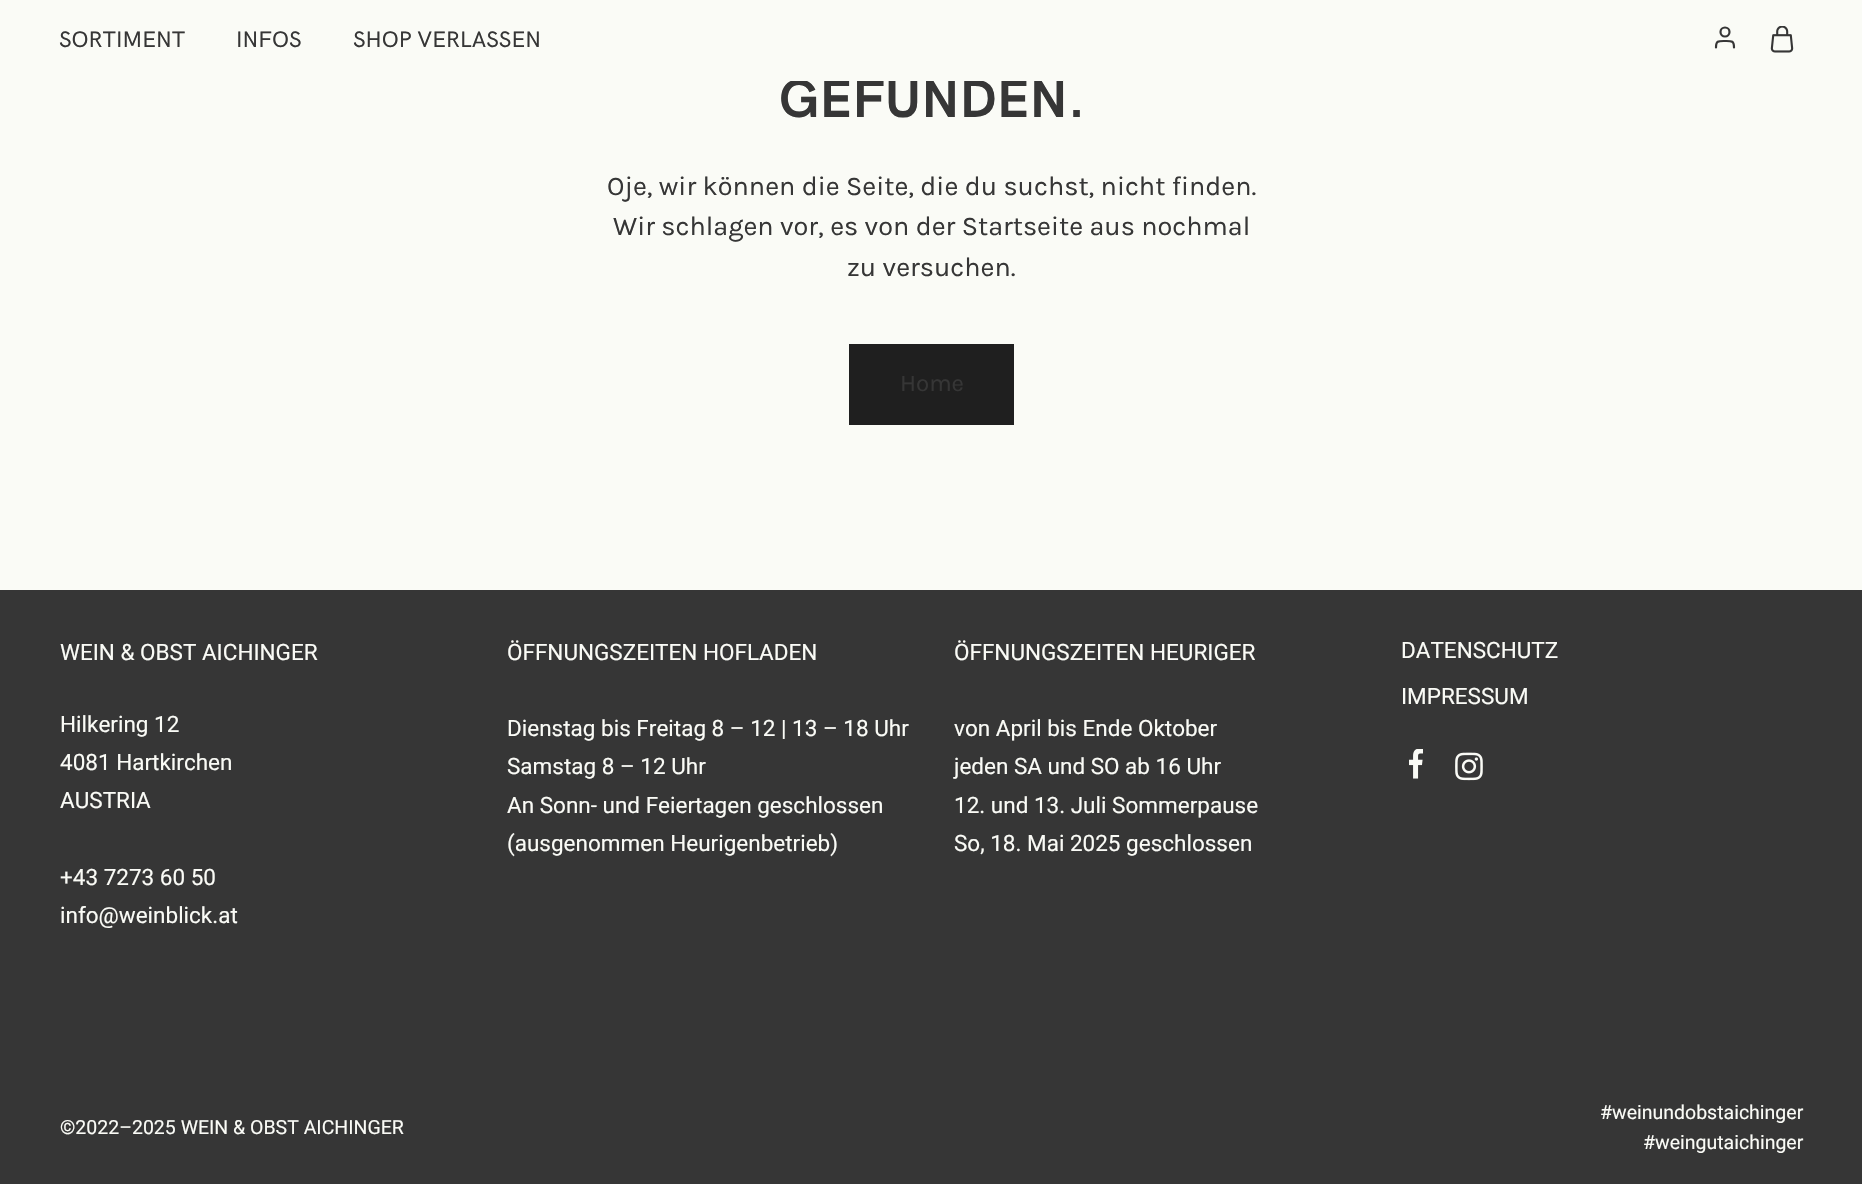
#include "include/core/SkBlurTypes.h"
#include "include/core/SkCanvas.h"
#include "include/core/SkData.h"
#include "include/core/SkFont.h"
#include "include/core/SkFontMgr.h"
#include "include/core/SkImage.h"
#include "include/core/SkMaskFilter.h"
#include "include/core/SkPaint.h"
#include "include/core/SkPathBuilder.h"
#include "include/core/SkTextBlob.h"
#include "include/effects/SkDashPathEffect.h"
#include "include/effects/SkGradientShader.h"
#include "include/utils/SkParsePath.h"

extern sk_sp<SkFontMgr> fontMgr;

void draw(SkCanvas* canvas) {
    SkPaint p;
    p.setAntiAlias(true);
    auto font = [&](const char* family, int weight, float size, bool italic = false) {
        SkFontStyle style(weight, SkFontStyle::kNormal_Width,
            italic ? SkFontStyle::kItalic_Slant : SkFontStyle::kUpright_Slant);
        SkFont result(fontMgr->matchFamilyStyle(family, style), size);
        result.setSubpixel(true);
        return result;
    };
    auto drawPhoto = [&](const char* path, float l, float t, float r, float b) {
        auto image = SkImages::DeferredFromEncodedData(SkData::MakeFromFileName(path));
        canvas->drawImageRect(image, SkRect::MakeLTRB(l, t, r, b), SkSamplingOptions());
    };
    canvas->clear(0xFFFAFBF6);
    auto font1 = font("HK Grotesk", 700, 54);
    p.setColor(0xFF363636);
    canvas->drawString("GEFUNDEN.", 779, 117, font1, p);
    p.setColor(0xFFFAFBF6);
    canvas->drawRect(SkRect::MakeLTRB(790, 79, 1063, 81), p);
    auto font2 = font("HK Grotesk", 500, 22.5f);
    p.setColor(0xFF363636);
    {
        const struct { const char* s; float x, y; } items[] = {
            {"SORTIMENT", 59, 47},
            {"INFOS", 236, 47},
            {"SHOP VERLASSEN", 353, 47},
        };
        for (auto [s, x, y] : items) {
            canvas->drawString(s, x, y, font2, p);
        }
    }
    p.setStyle(SkPaint::kStroke_Style);
    p.setStrokeWidth(2.2f);
    p.setStrokeCap(SkPaint::kRound_Cap);
    p.setStrokeJoin(SkPaint::kRound_Join);
    canvas->drawPath(SkPathBuilder().moveTo(1734, 47.5f).cubicTo(1734, 40.5f, 1731.5f, 41, 1725, 41).cubicTo(1718.5f, 41, 1716, 40.5f, 1716, 47.5f).detach(), p);
    p.setStrokeCap(SkPaint::kButt_Cap);
    p.setStrokeJoin(SkPaint::kMiter_Join);
    canvas->drawCircle(1725, 32, 4.5f, p);
    drawPhoto("media/1.png", 1770, 26, 1794, 53);
    auto font3 = font("Karla", 400, 27);
    p.setStyle(SkPaint::kFill_Style);
    {
        const struct { const char* s; float x, y; } items[] = {
            {"Oje, wir können die Seite, die du suchst, nicht finden.", 607, 195},
            {"Wir schlagen vor, es von der Startseite aus nochmal", 613, 235},
            {"zu versuchen.", 847, 276},
        };
        for (auto [s, x, y] : items) {
            canvas->drawString(s, x, y, font3, p);
        }
    }
    p.setColor(0xFF1F1F1F);
    canvas->drawRect(SkRect::MakeLTRB(849, 344, 1014, 425), p);
    auto font4 = font("Karla", 400, 24);
    p.setColor(0xFF363636);
    canvas->drawString("Home", 900, 391, font4, p);
    canvas->drawRect(SkRect::MakeLTRB(0, 590, 1862, 1184), p);
    auto font5 = font("Roboto", 400, 22.5f);
    p.setColor(0xFFFAFBF6);
    {
        const struct { const char* s; float x, y; } items[] = {
            {"WEIN & OBST AICHINGER", 60, 660},
            {"Hilkering 12", 60, 732},
            {"4081 Hartkirchen", 60, 770},
            {"AUSTRIA", 60, 808},
            {"+43 7273 60 50", 60, 885},
            {"info@weinblick.at", 60, 923},
            {"ÖFFNUNGSZEITEN HOFLADEN", 507, 660},
            {"Dienstag bis Freitag 8 – 12 | 13 – 18 Uhr", 507, 736},
            {"Samstag 8 – 12 Uhr", 507, 774},
            {"An Sonn- und Feiertagen geschlossen", 507, 813},
            {"(ausgenommen Heurigenbetrieb)", 507, 851},
            {"ÖFFNUNGSZEITEN HEURIGER", 954, 660},
            {"von April bis Ende Oktober", 954, 736},
            {"jeden SA und SO ab 16 Uhr", 954, 774},
            {"12. und 13. Juli Sommerpause", 954, 813},
            {"So, 18. Mai 2025 geschlossen", 954, 851},
            {"DATENSCHUTZ", 1401, 658},
            {"IMPRESSUM", 1401, 704},
        };
        for (auto [s, x, y] : items) {
            canvas->drawString(s, x, y, font5, p);
        }
    }
    drawPhoto("media/2.png", 1409, 749, 1423, 779);
    drawPhoto("media/3.png", 1455, 752, 1483, 781);
    auto font6 = font("Roboto", 400, 19.5f);
    {
        const struct { const char* s; float x, y; } items[] = {
            {"©2022–2025 WEIN & OBST AICHINGER", 60, 1134},
            {"#weinundobstaichinger", 1600, 1119},
            {"#weingutaichinger", 1643, 1149},
        };
        for (auto [s, x, y] : items) {
            canvas->drawString(s, x, y, font6, p);
        }
    }
}
